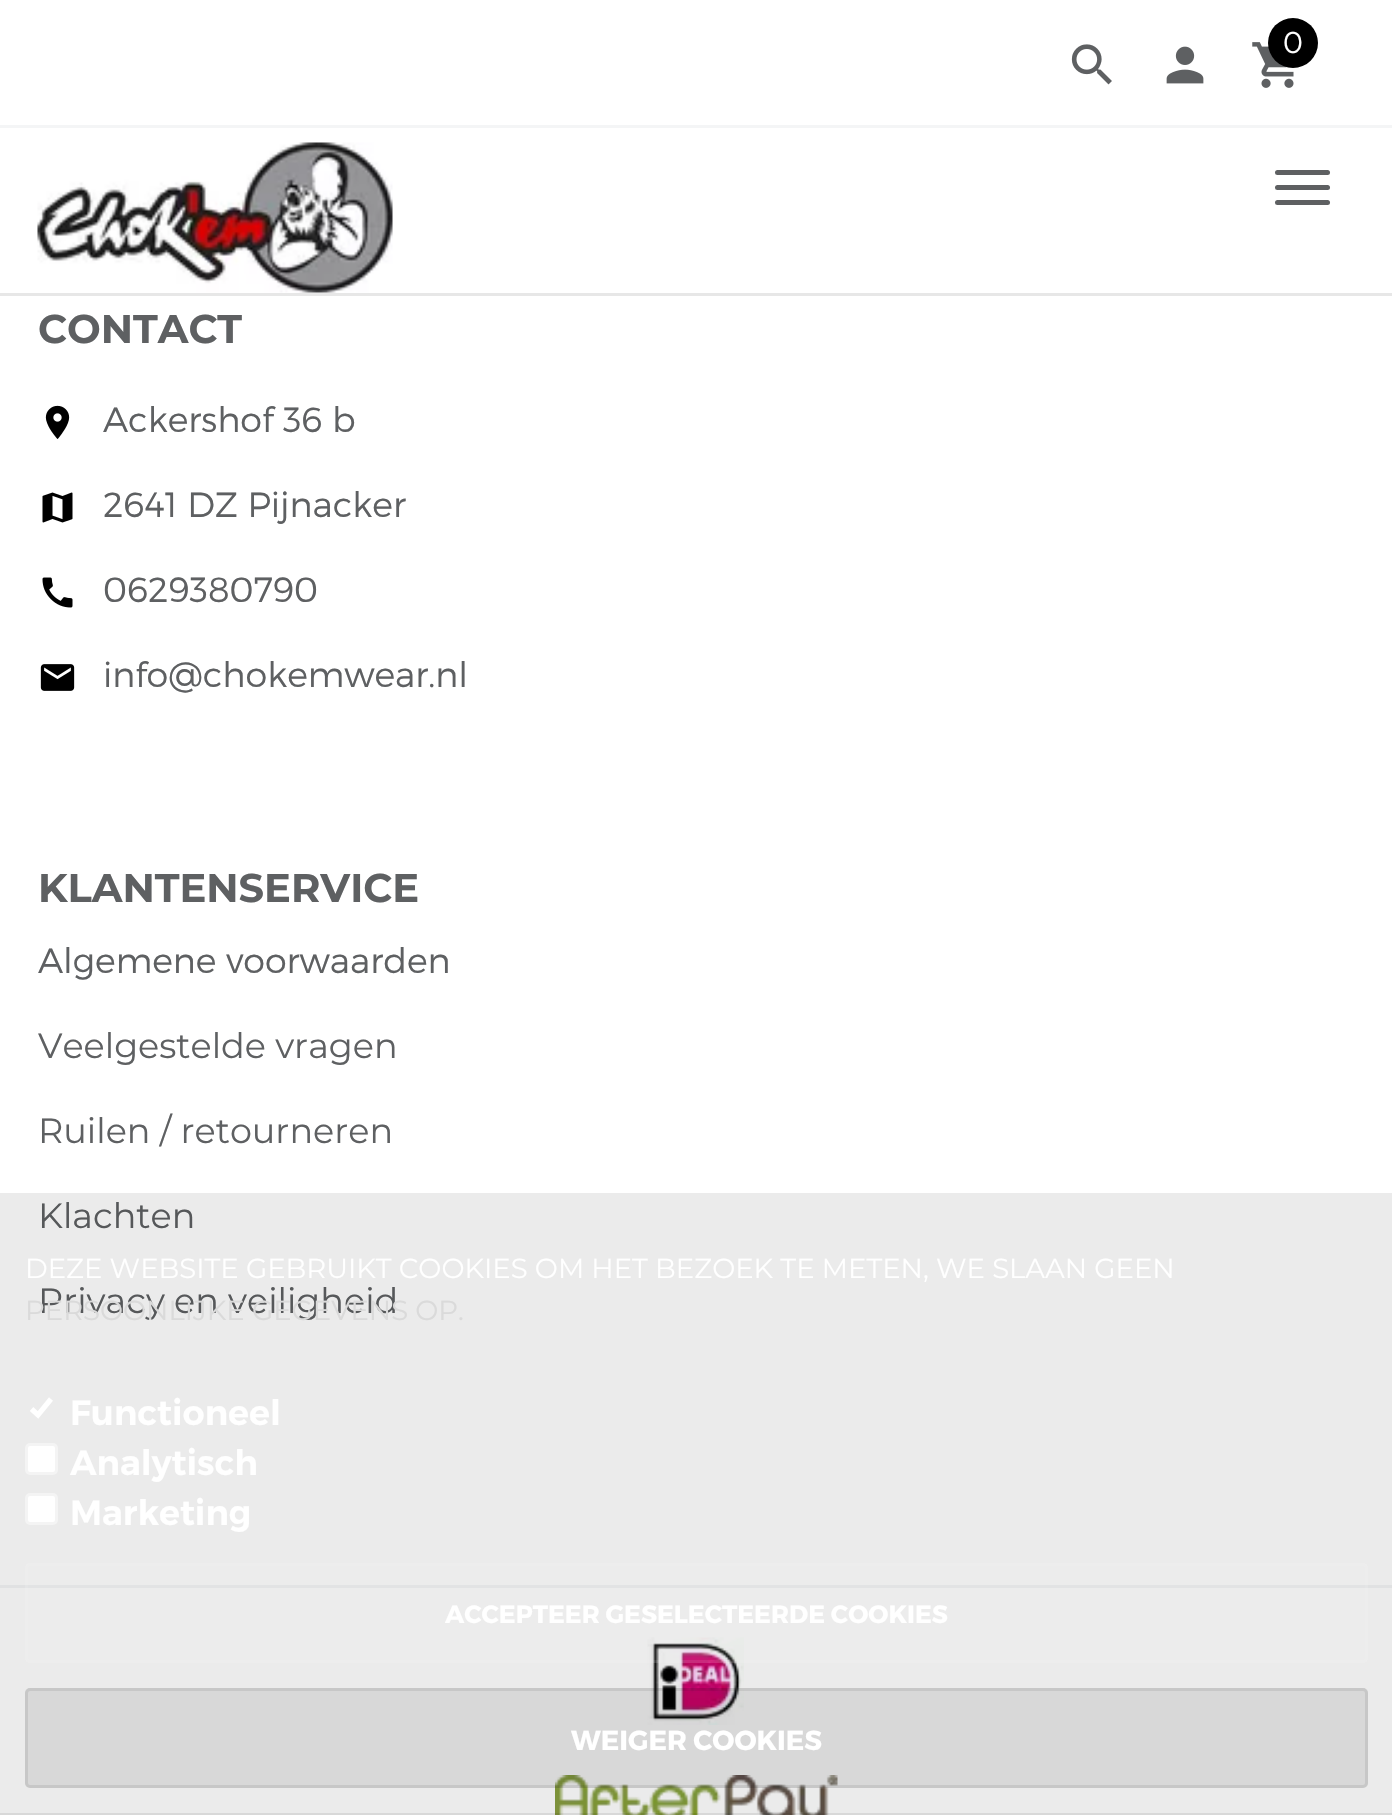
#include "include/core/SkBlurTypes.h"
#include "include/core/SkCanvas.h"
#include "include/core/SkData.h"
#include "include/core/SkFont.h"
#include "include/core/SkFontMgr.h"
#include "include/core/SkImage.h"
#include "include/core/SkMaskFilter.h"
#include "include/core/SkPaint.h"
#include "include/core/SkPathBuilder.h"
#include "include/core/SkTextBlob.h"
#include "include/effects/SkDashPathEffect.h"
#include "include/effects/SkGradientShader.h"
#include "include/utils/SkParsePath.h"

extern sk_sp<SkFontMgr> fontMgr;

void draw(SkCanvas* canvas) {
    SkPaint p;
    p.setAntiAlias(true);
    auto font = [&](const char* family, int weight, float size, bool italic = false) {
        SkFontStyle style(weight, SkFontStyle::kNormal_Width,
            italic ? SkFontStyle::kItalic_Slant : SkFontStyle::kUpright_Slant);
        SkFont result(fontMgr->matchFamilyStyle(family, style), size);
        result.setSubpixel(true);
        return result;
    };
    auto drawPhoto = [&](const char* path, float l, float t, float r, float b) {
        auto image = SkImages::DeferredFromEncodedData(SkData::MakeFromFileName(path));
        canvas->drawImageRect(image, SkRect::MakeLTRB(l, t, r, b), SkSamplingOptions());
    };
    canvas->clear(0xFFFFFFFF);
    p.setColor(0xFFE7E7E7);
    canvas->drawRect(SkRect::MakeLTRB(0, 293, 1392, 296), p);
    drawPhoto("media/1.png", 1071, 44, 1112, 85);
    drawPhoto("media/2.png", 1166, 46, 1204, 84);
    drawPhoto("media/3.png", 1252, 42, 1294, 88);
    p.setColor(0xFF000000);
    canvas->drawCircle(1293, 43, 25, p);
    auto font1 = font("Montserrat", 400, 30);
    p.setColor(0xFFFFFFFF);
    canvas->drawString("0", 1283, 53, font1, p);
    p.setColor(0xFFF4F5F6);
    canvas->drawRect(SkRect::MakeLTRB(0, 125, 1392, 128), p);
    drawPhoto("media/4.png", 37, 142, 393, 293);
    p.setColor(0xFF5E6062);
    canvas->drawRoundRect(SkRect::MakeLTRB(1275, 170, 1330, 175), 2.5f, 2.5f, p);
    canvas->drawRoundRect(SkRect::MakeLTRB(1275, 185, 1330, 190), 2.5f, 2.5f, p);
    canvas->drawRoundRect(SkRect::MakeLTRB(1275, 200, 1330, 205), 2.5f, 2.5f, p);
    p.setColor(0xFFEBEBEB);
    canvas->drawRect(SkRect::MakeLTRB(0, 1193, 1392, 1815), p);
    auto font2 = font("Montserrat", 700, 40);
    p.setColor(0xFF5E6062);
    canvas->drawString("CONTACT", 38, 343, font2, p);
    drawPhoto("media/5.png", 45, 405, 70, 439);
    auto font3 = font("Montserrat", 300, 35);
    canvas->drawString("Ackershof 36 b", 103, 432, font3, p);
    drawPhoto("media/6.png", 42, 492, 73, 523);
    canvas->drawString("2641 DZ Pijnacker", 103, 517, font3, p);
    drawPhoto("media/7.png", 42, 577, 73, 608);
    canvas->drawString("0629380790", 103, 602, font3, p);
    drawPhoto("media/8.png", 40, 664, 75, 691);
    canvas->drawString("info@chokemwear.nl", 103, 687, font3, p);
    canvas->drawString("KLANTENSERVICE", 38, 902, font2, p);
    canvas->drawString("Algemene voorwaarden", 38, 973, font3, p);
    auto font4 = font("Montserrat", 400, 35);
    canvas->drawString("Veelgestelde vragen", 38, 1058, font4, p);
    canvas->drawString("Ruilen / retourneren", 38, 1143, font4, p);
    p.setColor(0xFF56585A);
    canvas->drawString("Klachten", 38, 1228, font4, p);
    canvas->drawString("Privacy en veiligheid", 38, 1313, font4, p);
    p.setColor(0xFFE0E1E2);
    canvas->drawRect(SkRect::MakeLTRB(0, 1585, 1392, 1588), p);
    drawPhoto("media/9.png", 647, 1637, 744, 1725);
    drawPhoto("media/10.png", 555, 1775, 838, 1815);
    p.setColor(0x14000000);
    canvas->drawRect(SkRect::MakeLTRB(0, 1813, 1392, 1815), p);
    auto font5 = font("Montserrat", 400, 27.5f);
    p.setColor(0xFFFFFFFF);
    canvas->drawString("DEZE WEBSITE GEBRUIKT COOKIES OM HET BEZOEK TE METEN, WE SLAAN GEEN", 25, 1278, font5, p);
    p.setColor(0xFFDADADA);
    canvas->drawString("PERSOONLIJKE GEGEVENS OP.", 25, 1320, font5, p);
    p.setStyle(SkPaint::kStroke_Style);
    p.setStrokeWidth(5.2f);
    p.setColor(0xFFFFFFFF);
    canvas->drawPath(SkPathBuilder().moveTo(31.5f, 1409).lineTo(38, 1415).lineTo(51, 1399).detach(), p);
    auto font6 = font("Montserrat", 600, 35);
    p.setStyle(SkPaint::kFill_Style);
    canvas->drawString("Functioneel", 70, 1425, font6, p);
    canvas->drawRoundRect(SkRect::MakeLTRB(26.5f, 1444.5f, 56.5f, 1473.5f), 3.5f, 3.5f, p);
    p.setStyle(SkPaint::kStroke_Style);
    p.setStrokeWidth(3);
    p.setColor(0xFFF4F4F4);
    canvas->drawRoundRect(SkRect::MakeLTRB(26.5f, 1444.5f, 56.5f, 1473.5f), 3.5f, 3.5f, p);
    p.setStyle(SkPaint::kFill_Style);
    p.setColor(0xFFFFFFFF);
    canvas->drawString("Analytisch", 70, 1475, font6, p);
    canvas->drawRoundRect(SkRect::MakeLTRB(26.5f, 1494.5f, 56.5f, 1523.5f), 3.5f, 3.5f, p);
    p.setStyle(SkPaint::kStroke_Style);
    p.setColor(0xFFF4F4F4);
    canvas->drawRoundRect(SkRect::MakeLTRB(26.5f, 1494.5f, 56.5f, 1523.5f), 3.5f, 3.5f, p);
    p.setStyle(SkPaint::kFill_Style);
    p.setColor(0xFFFFFFFF);
    canvas->drawString("Marketing", 70, 1525, font6, p);
    p.setColor(0x14FFFFFF);
    canvas->drawRoundRect(SkRect::MakeLTRB(25, 1563, 1368, 1663), 5, 5, p);
    p.setStyle(SkPaint::kStroke_Style);
    canvas->drawRoundRect(SkRect::MakeLTRB(26.5f, 1564.5f, 1366.5f, 1661.5f), 3.5f, 3.5f, p);
    auto font7 = font("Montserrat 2", 700, 25);
    p.setStyle(SkPaint::kFill_Style);
    p.setColor(0xFFFFFFFF);
    canvas->drawString("ACCEPTEER GESELECTEERDE COOKIES", 445, 1623, font7, p);
    p.setColor(0x14000000);
    canvas->drawRoundRect(SkRect::MakeLTRB(25, 1688, 1368, 1788), 5, 5, p);
    p.setStyle(SkPaint::kStroke_Style);
    canvas->drawRoundRect(SkRect::MakeLTRB(26.5f, 1689.5f, 1366.5f, 1786.5f), 3.5f, 3.5f, p);
    auto font8 = font("Montserrat 2", 700, 27.5f);
    p.setStyle(SkPaint::kFill_Style);
    p.setColor(0xFFFFFFFF);
    canvas->drawString("WEIGER COOKIES", 571, 1750, font8, p);
}
